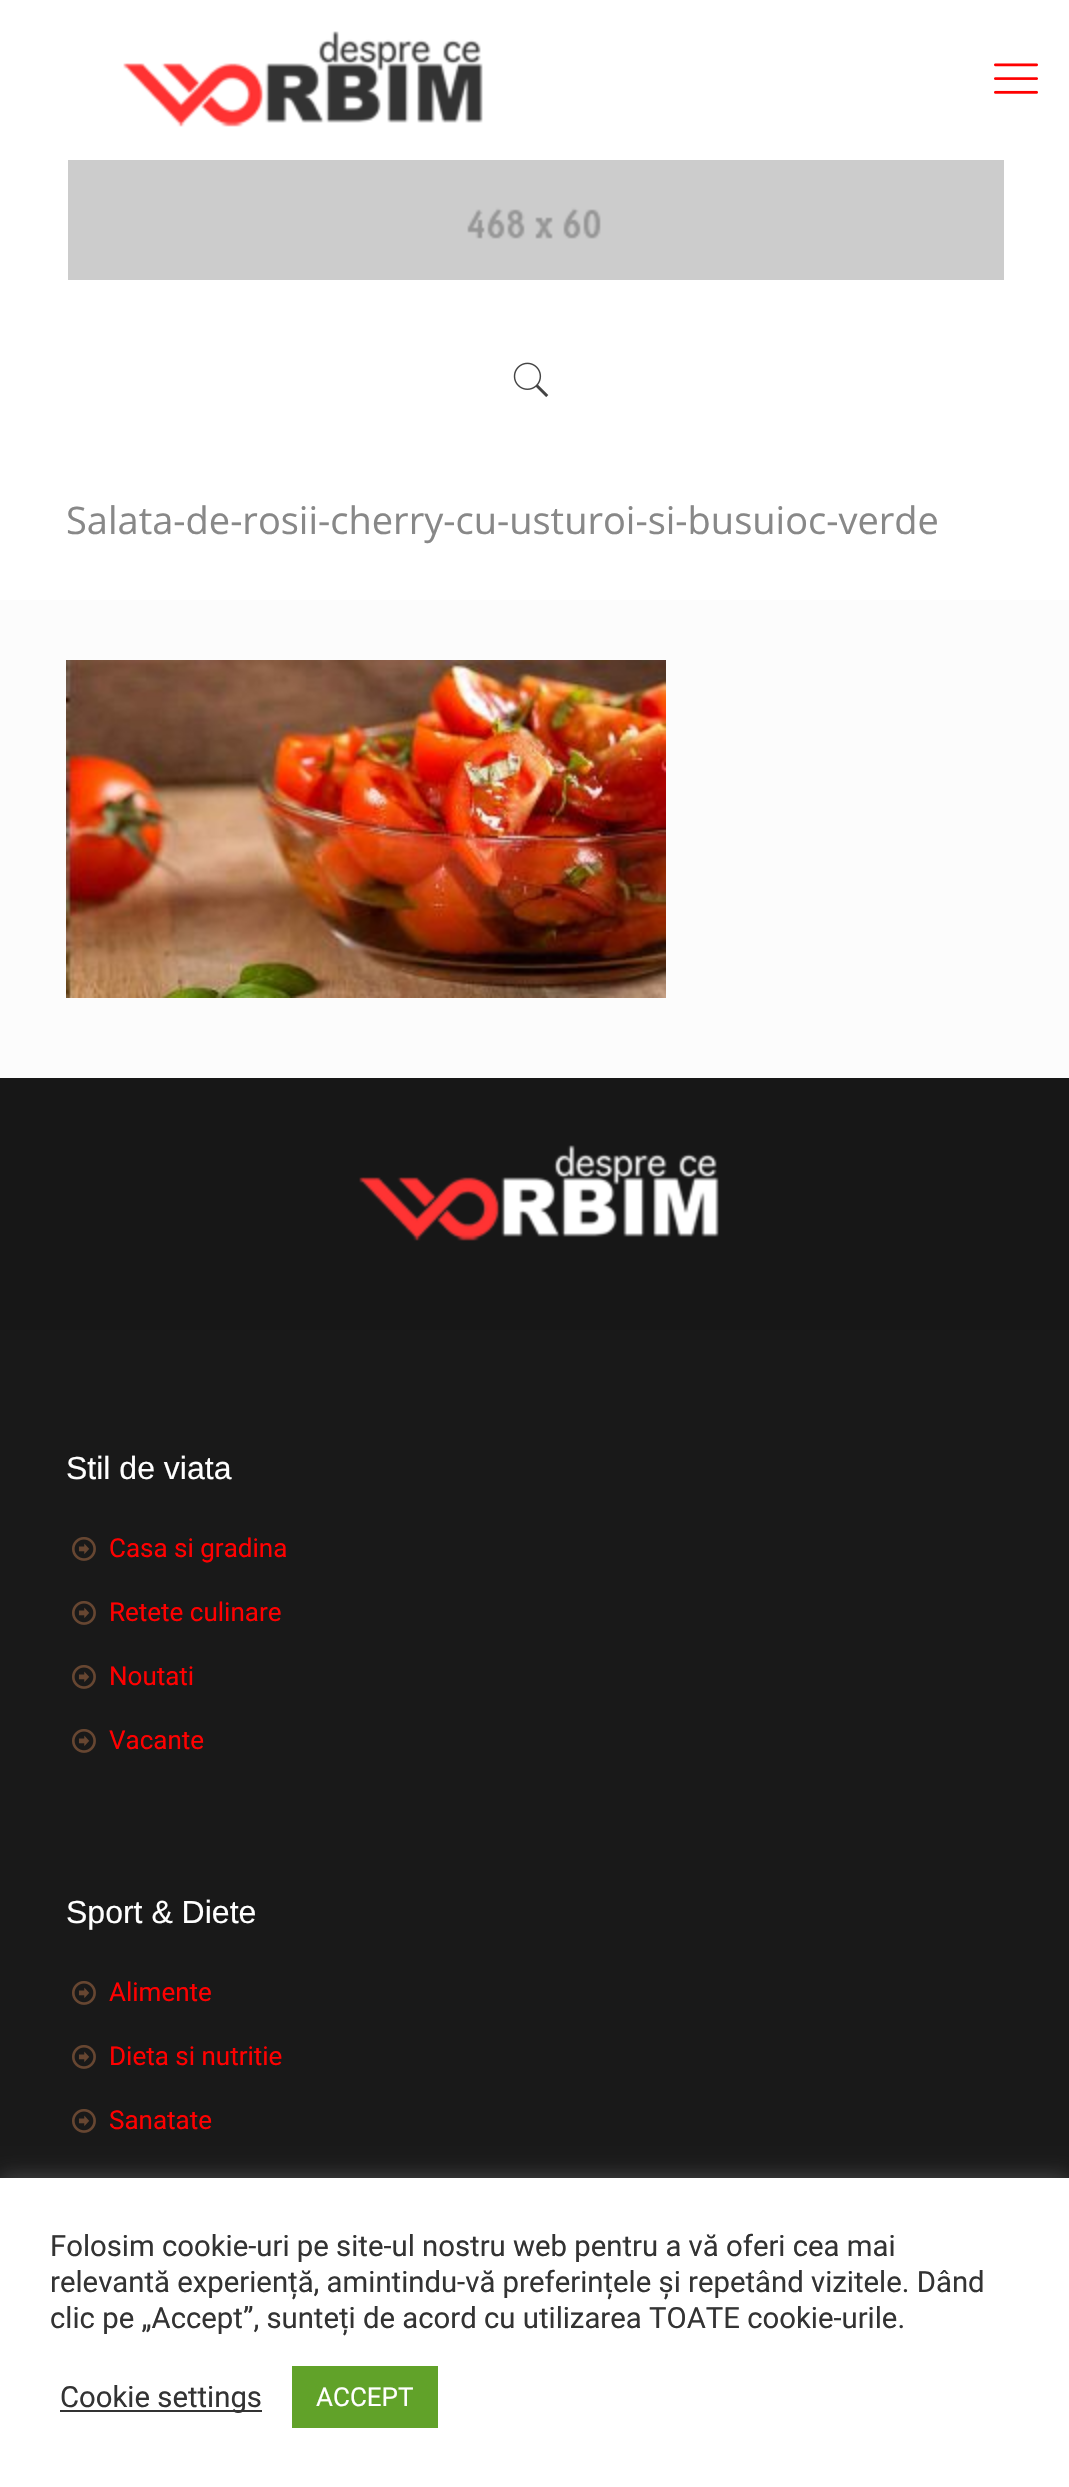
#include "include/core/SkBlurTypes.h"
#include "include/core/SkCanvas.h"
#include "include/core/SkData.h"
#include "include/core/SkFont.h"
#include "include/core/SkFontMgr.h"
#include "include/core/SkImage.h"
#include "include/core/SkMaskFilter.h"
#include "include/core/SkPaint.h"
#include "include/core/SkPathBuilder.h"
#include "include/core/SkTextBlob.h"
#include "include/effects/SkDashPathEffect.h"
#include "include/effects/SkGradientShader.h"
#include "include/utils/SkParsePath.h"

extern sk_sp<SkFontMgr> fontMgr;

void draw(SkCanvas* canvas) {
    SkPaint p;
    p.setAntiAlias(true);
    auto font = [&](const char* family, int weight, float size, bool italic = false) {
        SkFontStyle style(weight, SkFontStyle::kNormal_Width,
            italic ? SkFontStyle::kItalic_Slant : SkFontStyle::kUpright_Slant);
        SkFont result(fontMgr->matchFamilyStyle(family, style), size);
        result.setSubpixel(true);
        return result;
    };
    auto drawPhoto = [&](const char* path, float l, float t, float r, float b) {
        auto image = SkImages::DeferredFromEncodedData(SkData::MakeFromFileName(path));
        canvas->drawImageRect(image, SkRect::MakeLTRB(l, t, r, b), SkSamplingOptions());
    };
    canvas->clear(0xFFFCFCFC);
    p.setColor(0xFFFFFFFF);
    canvas->drawRect(SkRect::MakeLTRB(0, 0, 1069, 600), p);
    drawPhoto("media/1.png", 123, 31, 483, 127);
    drawPhoto("media/2.png", 994, 63, 1038, 94);
    drawPhoto("media/3.png", 68, 160, 1004, 280);
    drawPhoto("media/4.png", 513, 362, 549, 398);
    auto font1 = font("Open Sans", 400, 38);
    p.setColor(0xFF888888);
    canvas->drawString("Salata-de-rosii-cherry-cu-usturoi-si-busuioc-verde", 66, 534, font1, p);
    drawPhoto("media/5.png", 66, 660, 666, 998);
    p.setColor(0xFF191919);
    canvas->drawRect(SkRect::MakeLTRB(0, 1330, 1069, 2178), p);
    p.setColor(0xFF171717);
    canvas->drawRect(SkRect::MakeLTRB(0, 1078, 1069, 1330), p);
    drawPhoto("media/6.png", 359, 1145, 719, 1241);
    auto font2 = font("Liberation Sans", 400, 32);
    p.setColor(0xFFFFFFFF);
    canvas->drawString("Stil de viata", 66, 1479, font2, p);
    drawPhoto("media/7.png", 72, 1537, 96, 1561);
    auto font3 = font("Roboto", 400, 26);
    p.setColor(0xFFFF0000);
    canvas->drawString("Casa si gradina", 109, 1557, font3, p);
    drawPhoto("media/7.png", 72, 1601, 96, 1625);
    canvas->drawString("Retete culinare", 109, 1621, font3, p);
    drawPhoto("media/7.png", 72, 1665, 96, 1689);
    canvas->drawString("Noutati", 109, 1685, font3, p);
    drawPhoto("media/7.png", 72, 1729, 96, 1753);
    canvas->drawString("Vacante", 109, 1749, font3, p);
    p.setColor(0xFFFFFFFF);
    canvas->drawString("Sport & Diete", 66, 1923, font2, p);
    drawPhoto("media/7.png", 72, 1981, 96, 2005);
    p.setColor(0xFFFF0000);
    canvas->drawString("Alimente", 109, 2001, font3, p);
    drawPhoto("media/7.png", 72, 2045, 96, 2069);
    canvas->drawString("Dieta si nutritie", 109, 2065, font3, p);
    drawPhoto("media/7.png", 72, 2109, 96, 2133);
    canvas->drawString("Sanatate", 109, 2129, font3, p);
    p.setColor(0x4DACABAB);
    p.setMaskFilter(SkMaskFilter::MakeBlur(kNormal_SkBlurStyle, 10));
    canvas->drawRect(SkRect::MakeLTRB(0, 2176, 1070, 2486), p);
    p.setMaskFilter(nullptr);
    p.setColor(0xFFFFFFFF);
    canvas->drawRect(SkRect::MakeLTRB(0, 2178, 1069, 2487), p);
    auto font4 = font("Roboto", 400, 29.3f);
    p.setColor(0xFF333333);
    {
        const struct { const char* s; float x, y; } items[] = {
            {"Folosim cookie-uri pe site-ul nostru web pentru a vă oferi cea mai", 50, 2256},
            {"relevantă experiență, amintindu-vă preferințele și repetând vizitele. Dând", 50, 2292},
            {"clic pe „Accept”, sunteți de acord cu utilizarea TOATE cookie-urile.", 50, 2328},
        };
        for (auto [s, x, y] : items) {
            canvas->drawString(s, x, y, font4, p);
        }
    }
    canvas->drawRect(SkRect::MakeLTRB(60, 2410, 262, 2412), p);
    canvas->drawString("Cookie settings", 60, 2407, font4, p);
    p.setColor(0xFF61A229);
    canvas->drawRect(SkRect::MakeLTRB(292, 2366, 438, 2428), p);
    p.setColor(0xFFFFFFFF);
    canvas->drawString("ACCEPT", 316, 2406, font3, p);
}
